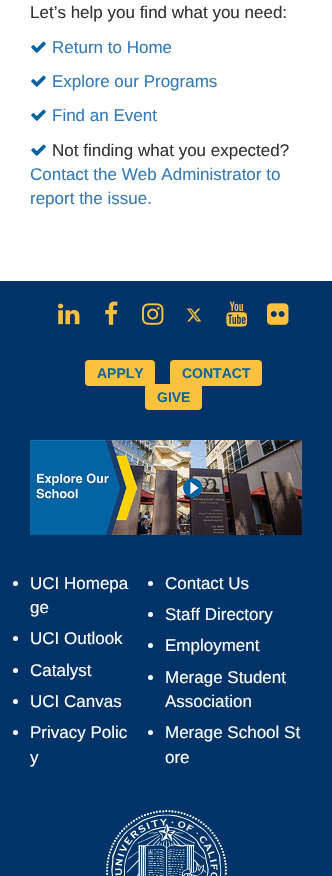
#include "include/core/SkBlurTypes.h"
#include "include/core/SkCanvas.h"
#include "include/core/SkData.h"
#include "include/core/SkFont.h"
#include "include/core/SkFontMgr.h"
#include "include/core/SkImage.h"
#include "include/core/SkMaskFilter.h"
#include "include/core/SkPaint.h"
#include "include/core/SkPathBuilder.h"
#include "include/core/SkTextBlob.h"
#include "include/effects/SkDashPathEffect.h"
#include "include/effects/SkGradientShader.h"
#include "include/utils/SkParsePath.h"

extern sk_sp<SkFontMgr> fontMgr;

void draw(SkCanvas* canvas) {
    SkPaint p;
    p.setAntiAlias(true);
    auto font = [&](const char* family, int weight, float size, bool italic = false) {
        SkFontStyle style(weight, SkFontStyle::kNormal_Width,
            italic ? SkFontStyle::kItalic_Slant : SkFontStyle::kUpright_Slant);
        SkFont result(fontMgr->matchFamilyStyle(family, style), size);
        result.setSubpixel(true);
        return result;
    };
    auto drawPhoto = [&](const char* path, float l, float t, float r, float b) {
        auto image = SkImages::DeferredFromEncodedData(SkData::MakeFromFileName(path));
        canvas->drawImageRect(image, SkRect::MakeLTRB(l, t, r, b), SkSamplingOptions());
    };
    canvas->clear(0xFFFFFFFF);
    auto font1 = font("Liberation Sans", 400, 17);
    p.setColor(0xFF333333);
    canvas->drawString("Let’s help you find what you need:", 30, 18, font1, p);
    drawPhoto("media/1.png", 31, 41, 46, 53);
    p.setColor(0xFF337AB7);
    canvas->drawString("Return to Home", 52, 53, font1, p);
    drawPhoto("media/1.png", 31, 75, 46, 87);
    canvas->drawString("Explore our Programs", 52, 87, font1, p);
    drawPhoto("media/1.png", 31, 109, 46, 121);
    canvas->drawString("Find an Event", 52, 121, font1, p);
    drawPhoto("media/1.png", 31, 144, 46, 156);
    p.setColor(0xFF333333);
    canvas->drawString("Not finding what you expected?", 52, 156, font1, p);
    p.setColor(0xFF337AB7);
    canvas->drawString("Contact the Web Administrator to", 30, 180, font1, p);
    canvas->drawString("report the issue.", 30, 204, font1, p);
    p.setColor(0xFF003468);
    canvas->drawRect(SkRect::MakeLTRB(0, 281, 332, 876), p);
    drawPhoto("media/2.png", 58, 303, 80, 325);
    drawPhoto("media/3.png", 105, 301, 118, 325);
    drawPhoto("media/4.png", 142, 303, 164, 325);
    drawPhoto("media/5.png", 187, 308, 202, 322);
    drawPhoto("media/6.png", 226, 301, 248, 327);
    drawPhoto("media/7.png", 267, 303, 289, 325);
    p.setColor(0xFFFCC23D);
    canvas->drawRoundRect(SkRect::MakeLTRB(85, 360, 155, 386), 4, 4, p);
    auto font2 = font("Liberation Sans", 700, 14);
    p.setColor(0xFF0F669D);
    canvas->drawString("APPLY", 97, 378, font2, p);
    p.setColor(0xFFFCC23D);
    canvas->drawRoundRect(SkRect::MakeLTRB(170, 360, 262, 386), 4, 4, p);
    p.setColor(0xFF0F669D);
    canvas->drawString("CONTACT", 182, 378, font2, p);
    p.setColor(0xFFFCC23D);
    canvas->drawRoundRect(SkRect::MakeLTRB(145, 384, 202, 410), 4, 4, p);
    p.setColor(0xFF0F669D);
    canvas->drawString("GIVE", 157, 402, font2, p);
    drawPhoto("media/8.png", 30, 440, 302, 535);
    p.setColor(0xFFFFFFFF);
    canvas->drawCircle(15.5f, 583.5f, 2.5f, p);
    canvas->drawString("UCI Homepa", 30, 589, font1, p);
    canvas->drawString("ge", 30, 613, font1, p);
    canvas->drawCircle(15.5f, 638.5f, 2.5f, p);
    canvas->drawString("UCI Outlook", 30, 644, font1, p);
    canvas->drawCircle(15.5f, 670.5f, 2.5f, p);
    canvas->drawString("Catalyst", 30, 676, font1, p);
    canvas->drawCircle(15.5f, 701.5f, 2.5f, p);
    canvas->drawString("UCI Canvas", 30, 707, font1, p);
    canvas->drawCircle(15.5f, 732.5f, 2.5f, p);
    canvas->drawString("Privacy Polic", 30, 738, font1, p);
    canvas->drawString("y", 30, 763, font1, p);
    canvas->drawCircle(150.5f, 583.5f, 2.5f, p);
    canvas->drawString("Contact Us", 165, 589, font1, p);
    canvas->drawCircle(150.5f, 614.5f, 2.5f, p);
    canvas->drawString("Staff Directory", 165, 620, font1, p);
    canvas->drawCircle(150.5f, 645.5f, 2.5f, p);
    canvas->drawString("Employment", 165, 651, font1, p);
    canvas->drawCircle(150.5f, 677.5f, 2.5f, p);
    canvas->drawString("Merage Student", 165, 683, font1, p);
    canvas->drawString("Association", 165, 707, font1, p);
    canvas->drawCircle(150.5f, 732.5f, 2.5f, p);
    canvas->drawString("Merage School St", 165, 738, font1, p);
    canvas->drawString("ore", 165, 763, font1, p);
    drawPhoto("media/9.png", 106, 810, 227, 876);
}
